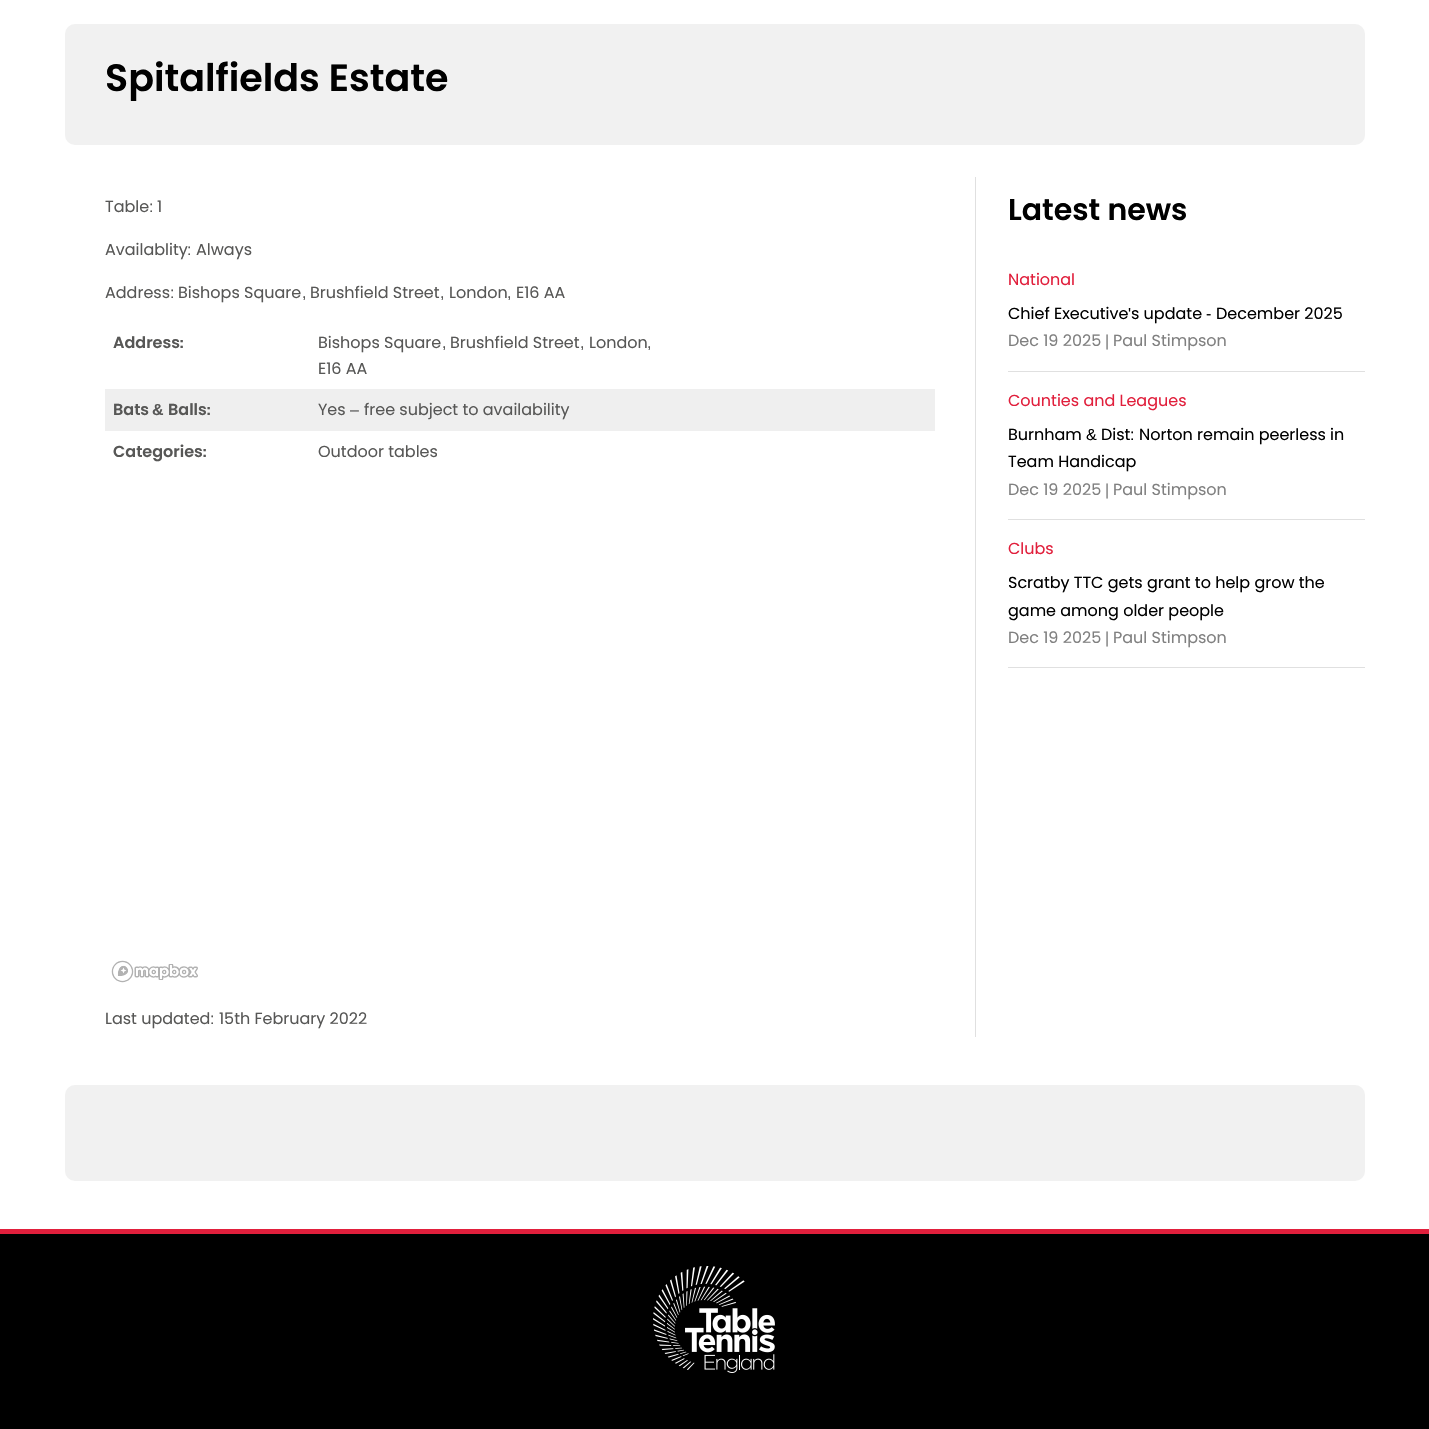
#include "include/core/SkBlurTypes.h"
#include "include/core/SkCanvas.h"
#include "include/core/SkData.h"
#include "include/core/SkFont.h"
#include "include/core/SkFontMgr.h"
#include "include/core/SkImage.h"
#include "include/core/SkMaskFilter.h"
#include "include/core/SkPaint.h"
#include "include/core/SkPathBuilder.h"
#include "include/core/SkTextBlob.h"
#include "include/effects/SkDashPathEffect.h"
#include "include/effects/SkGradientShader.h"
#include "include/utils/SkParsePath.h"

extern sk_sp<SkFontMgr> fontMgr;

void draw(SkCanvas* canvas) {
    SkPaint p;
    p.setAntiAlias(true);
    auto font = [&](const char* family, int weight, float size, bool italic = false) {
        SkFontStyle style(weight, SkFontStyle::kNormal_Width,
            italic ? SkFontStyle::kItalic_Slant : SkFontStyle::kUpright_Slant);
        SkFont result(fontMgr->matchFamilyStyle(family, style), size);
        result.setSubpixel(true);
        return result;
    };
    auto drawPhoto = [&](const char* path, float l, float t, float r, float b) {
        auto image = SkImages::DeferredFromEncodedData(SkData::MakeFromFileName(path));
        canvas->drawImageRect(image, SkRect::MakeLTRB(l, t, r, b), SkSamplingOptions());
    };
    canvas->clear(0xFFFFFFFF);
    p.setColor(0xFFF1F1F1);
    canvas->drawRoundRect(SkRect::MakeLTRB(65, 24, 1365, 145), 10, 10, p);
    auto font1 = font("Poppins", 600, 38);
    p.setColor(0xFF000000);
    canvas->drawString("Spitalfields Estate", 105, 91, font1, p);
    auto font2 = font("Poppins", 400, 16);
    p.setColor(0xFF575756);
    canvas->drawString("Table", 105, 212, font2, p);
    auto font3 = font("Liberation Sans", 400, 16);
    canvas->drawString(":", 149, 212, font3, p);
    canvas->drawString("1", 157, 212, font2, p);
    canvas->drawString("Availablity", 105, 255, font2, p);
    canvas->drawString(":", 187, 255, font3, p);
    canvas->drawString("Always", 196, 255, font2, p);
    canvas->drawString("Address", 105, 298, font2, p);
    canvas->drawString(":", 170, 298, font3, p);
    {
        const struct { const char* s; float x, y; } items[] = {
            {"Bishops Square", 178, 298},
            {"Brushfield Street", 310, 298},
            {"London", 449, 298},
            {"E16 AA", 516, 298},
        };
        for (auto [s, x, y] : items) {
            canvas->drawString(s, x, y, font2, p);
        }
    }
    {
        const struct { const char* s; float x, y; } items[] = {
            {",", 302, 298},
            {",", 440, 298},
            {",", 507, 298},
        };
        for (auto [s, x, y] : items) {
            canvas->drawString(s, x, y, font3, p);
        }
    }
    auto font4 = font("Poppins", 600, 16);
    canvas->drawString("Address", 113, 348, font4, p);
    auto font5 = font("Liberation Sans", 700, 16);
    canvas->drawString(":", 179, 348, font5, p);
    canvas->drawString("Bishops Square", 318, 348, font2, p);
    canvas->drawString(",", 442, 348, font3, p);
    canvas->drawString("Brushfield Street", 450, 348, font2, p);
    canvas->drawString(",", 580, 348, font3, p);
    canvas->drawString("London", 589, 348, font2, p);
    canvas->drawString(",", 647, 348, font3, p);
    canvas->drawString("E16 AA", 318, 374, font2, p);
    p.setColor(0xFFEFEFEF);
    canvas->drawRect(SkRect::MakeLTRB(105, 389, 935, 431), p);
    p.setColor(0xFF575756);
    canvas->drawString("Bats", 113, 415, font4, p);
    canvas->drawString("&", 152, 415, font5, p);
    canvas->drawString("Balls", 168, 415, font4, p);
    canvas->drawString(":", 206, 415, font5, p);
    canvas->drawString("Yes", 318, 415, font2, p);
    canvas->drawString("–", 350, 415, font3, p);
    canvas->drawString("free subject to availability", 364, 415, font2, p);
    canvas->drawString("Categories", 113, 457, font4, p);
    canvas->drawString(":", 202, 457, font5, p);
    canvas->drawString("Outdoor tables", 318, 457, font2, p);
    drawPhoto("media/1.png", 111, 960, 198, 983);
    canvas->drawString("Last updated", 105, 1024, font2, p);
    canvas->drawString(":", 210, 1024, font3, p);
    canvas->drawString("15th February 2022", 219, 1024, font2, p);
    p.setColor(0xFFE0E0E0);
    canvas->drawRect(SkRect::MakeLTRB(975, 177, 976, 1037), p);
    auto font6 = font("Poppins", 600, 30);
    p.setColor(0xFF000000);
    canvas->drawString("Latest news", 1008, 220, font6, p);
    p.setColor(0xFFE0E0E0);
    canvas->drawRect(SkRect::MakeLTRB(1008, 371, 1365, 372), p);
    p.setColor(0xFFE11F3C);
    canvas->drawString("National", 1008, 285, font2, p);
    p.setColor(0xFF000000);
    canvas->drawString("Chief Executive", 1008, 319, font2, p);
    canvas->drawString("'", 1128, 319, font3, p);
    canvas->drawString("s update", 1131, 319, font2, p);
    canvas->drawString("December 2025", 1216, 319, font2, p);
    canvas->drawString("-", 1206, 319, font3, p);
    p.setColor(0xFF808080);
    canvas->drawString("Dec 19 2025", 1008, 346, font2, p);
    canvas->drawString("|", 1105, 346, font3, p);
    canvas->drawString("Paul Stimpson", 1113, 346, font2, p);
    p.setColor(0xFFE0E0E0);
    canvas->drawRect(SkRect::MakeLTRB(1008, 519, 1365, 520), p);
    p.setColor(0xFFE11F3C);
    canvas->drawString("Counties and Leagues", 1008, 406, font2, p);
    p.setColor(0xFF000000);
    canvas->drawString("Burnham", 1008, 440, font2, p);
    canvas->drawString("&", 1086, 440, font3, p);
    canvas->drawString("Dist", 1101, 440, font2, p);
    canvas->drawString(":", 1130, 440, font3, p);
    canvas->drawString("Norton remain peerless in", 1139, 440, font2, p);
    canvas->drawString("Team Handicap", 1008, 467, font2, p);
    p.setColor(0xFF808080);
    canvas->drawString("Dec 19 2025", 1008, 495, font2, p);
    canvas->drawString("|", 1105, 495, font3, p);
    canvas->drawString("Paul Stimpson", 1113, 495, font2, p);
    p.setColor(0xFFE0E0E0);
    canvas->drawRect(SkRect::MakeLTRB(1008, 667, 1365, 668), p);
    p.setColor(0xFFE11F3C);
    canvas->drawString("Clubs", 1008, 554, font2, p);
    p.setColor(0xFF000000);
    canvas->drawString("Scratby TTC gets grant to help grow the", 1008, 588, font2, p);
    canvas->drawString("game among older people", 1008, 616, font2, p);
    p.setColor(0xFF808080);
    canvas->drawString("Dec 19 2025", 1008, 643, font2, p);
    canvas->drawString("|", 1105, 643, font3, p);
    canvas->drawString("Paul Stimpson", 1113, 643, font2, p);
    p.setColor(0xFFF1F1F1);
    canvas->drawRoundRect(SkRect::MakeLTRB(65, 1085, 1365, 1181), 10, 10, p);
    p.setColor(0xFF000000);
    canvas->drawRect(SkRect::MakeLTRB(0, 1234, 1429, 1429), p);
    p.setColor(0xFFE11F3C);
    canvas->drawRect(SkRect::MakeLTRB(0, 1229, 1429, 1234), p);
    drawPhoto("media/2.png", 653, 1266, 775, 1373);
}
